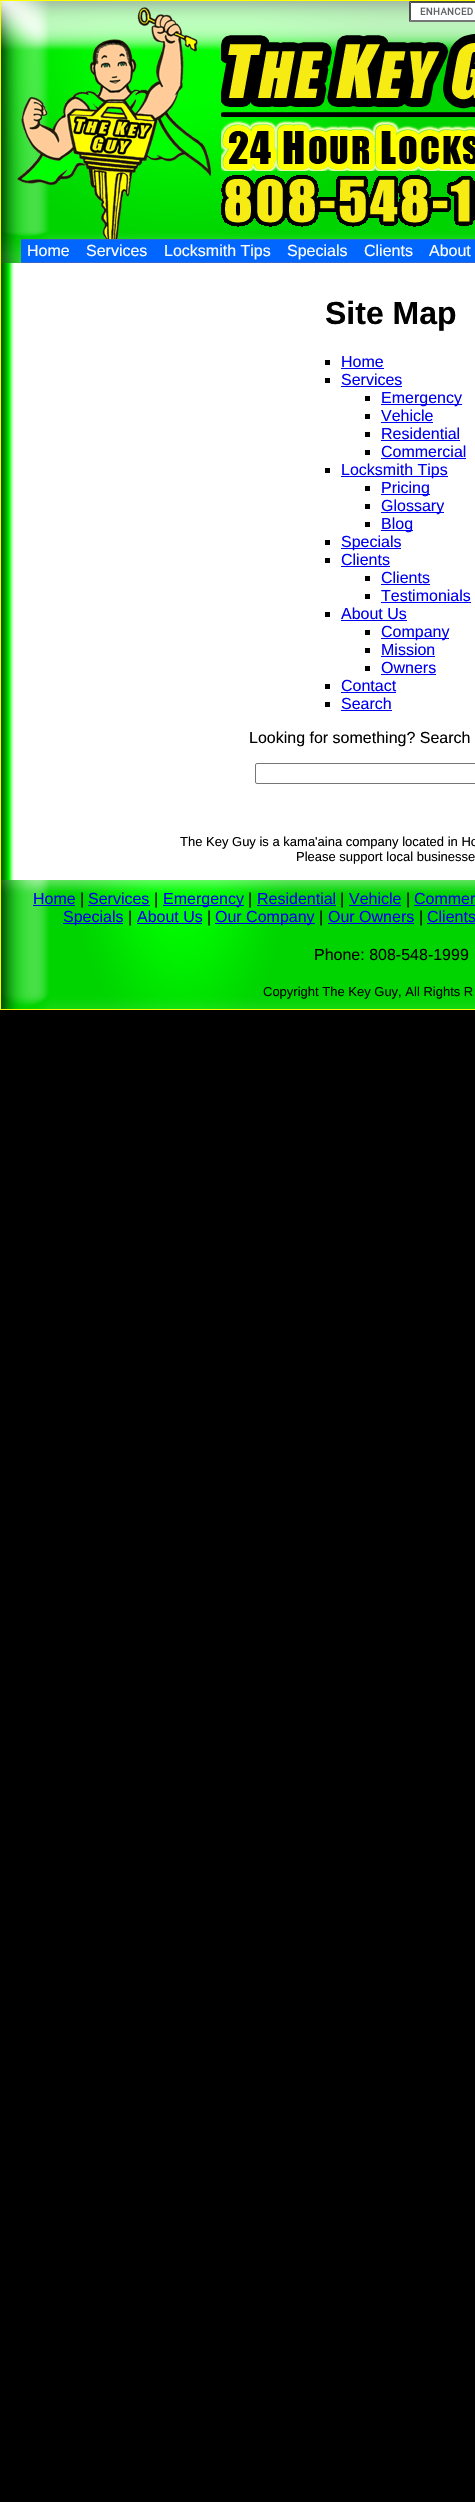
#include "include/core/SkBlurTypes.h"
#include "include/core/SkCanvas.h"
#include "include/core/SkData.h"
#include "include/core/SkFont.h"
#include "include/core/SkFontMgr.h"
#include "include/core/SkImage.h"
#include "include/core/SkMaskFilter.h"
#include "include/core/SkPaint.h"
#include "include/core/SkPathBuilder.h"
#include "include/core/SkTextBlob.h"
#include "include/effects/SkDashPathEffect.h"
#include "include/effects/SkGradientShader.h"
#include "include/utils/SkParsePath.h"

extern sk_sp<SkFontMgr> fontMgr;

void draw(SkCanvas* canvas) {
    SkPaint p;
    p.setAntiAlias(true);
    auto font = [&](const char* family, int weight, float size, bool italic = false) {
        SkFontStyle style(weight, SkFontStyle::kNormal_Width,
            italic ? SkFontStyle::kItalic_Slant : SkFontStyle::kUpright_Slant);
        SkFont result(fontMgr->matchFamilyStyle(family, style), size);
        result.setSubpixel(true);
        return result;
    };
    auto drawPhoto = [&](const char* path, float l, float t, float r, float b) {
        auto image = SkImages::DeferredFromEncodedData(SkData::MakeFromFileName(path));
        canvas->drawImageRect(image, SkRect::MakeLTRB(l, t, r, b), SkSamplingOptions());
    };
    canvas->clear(0xFF000000);
    p.setColor(0xFFFFFFFF);
    canvas->drawRect(SkRect::MakeLTRB(14, 263, 475, 880), p);
    drawPhoto("media/1.png", 1, 263, 14, 880);
    p.setStyle(SkPaint::kStroke_Style);
    p.setStrokeWidth(1);
    p.setColor(0xFFFFFF00);
    canvas->drawRect(SkRect::MakeLTRB(0.5f, 0.5f, 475.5f, 1009.5f), p);
    drawPhoto("media/2.png", 1, 1, 475, 263);
    p.setStyle(SkPaint::kFill_Style);
    p.setColor(0xFFFFFFFF);
    canvas->drawRect(SkRect::MakeLTRB(409, 1, 475, 22), p);
    drawPhoto("media/3.png", 420, 7, 473, 15);
    p.setColor(0xFF4F4F4F);
    canvas->drawPath(SkPathBuilder().moveTo(409, 1).lineTo(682, 1).lineTo(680, 3).lineTo(411, 3).close().detach(), p);
    p.setColor(0xFF767676);
    canvas->drawPath(SkPathBuilder().moveTo(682, 22).lineTo(409, 22).lineTo(411, 20).lineTo(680, 20).close().detach(), p);
    p.setColor(0xFF4F4F4F);
    canvas->drawPath(SkPathBuilder().moveTo(409, 22).lineTo(409, 1).lineTo(411, 3).lineTo(411, 20).close().detach(), p);
    drawPhoto("media/4.png", 221, 34, 475, 171);
    drawPhoto("media/5.png", 221, 175, 475, 227);
    {
        const struct { float l, t, r, b; SkColor color; } items[] = {
            {21, 240, 475, 262, 0xFF0066FF},
            {21, 239, 475, 240, 0xFF3366CC},
            {21, 262, 475, 263, 0xFF3366CC},
        };
        for (auto [l, t, r, b, color] : items) {
            p.setColor(color);
            canvas->drawRect(SkRect::MakeLTRB(l, t, r, b), p);
        }
    }
    auto font1 = font("Liberation Sans", 400, 16);
    p.setColor(0xFFFFFFFF);
    {
        const struct { const char* s; float x, y; } items[] = {
            {"Home", 27, 256},
            {"Services", 86, 256},
            {"Locksmith Tips", 164, 256},
            {"Specials", 287, 256},
            {"Clients", 364, 256},
            {"About", 429, 256},
        };
        for (auto [s, x, y] : items) {
            canvas->drawString(s, x, y, font1, p);
        }
    }
    drawPhoto("media/6.png", 1, 295, 14, 864);
    auto font2 = font("Liberation Sans", 700, 32);
    p.setColor(0xFF000000);
    canvas->drawString("Site Map", 325, 324, font2, p);
    canvas->drawRect(SkRect::MakeLTRB(325, 360, 330, 365), p);
    p.setColor(0xFF0000EE);
    canvas->drawString("Home", 341, 367, font1, p);
    canvas->drawRect(SkRect::MakeLTRB(341, 368, 384, 369), p);
    p.setColor(0xFF000000);
    canvas->drawRect(SkRect::MakeLTRB(325, 378, 330, 383), p);
    p.setColor(0xFF0000EE);
    canvas->drawString("Services", 341, 385, font1, p);
    {
        const struct { float l, t, r, b; SkColor color; } items[] = {
            {341, 386, 402, 387, 0xFF0000EE},
            {365, 396, 370, 401, 0xFF000000},
            {381, 404, 462, 405, 0xFF0000EE},
        };
        for (auto [l, t, r, b, color] : items) {
            p.setColor(color);
            canvas->drawRect(SkRect::MakeLTRB(l, t, r, b), p);
        }
    }
    canvas->drawString("Emergency", 381, 403, font1, p);
    p.setColor(0xFF000000);
    canvas->drawRect(SkRect::MakeLTRB(365, 414, 370, 419), p);
    p.setColor(0xFF0000EE);
    canvas->drawString("Vehicle", 381, 421, font1, p);
    canvas->drawRect(SkRect::MakeLTRB(381, 422, 433, 423), p);
    p.setColor(0xFF000000);
    canvas->drawRect(SkRect::MakeLTRB(365, 432, 370, 437), p);
    p.setColor(0xFF0000EE);
    canvas->drawString("Residential", 381, 439, font1, p);
    canvas->drawRect(SkRect::MakeLTRB(381, 440, 460, 441), p);
    p.setColor(0xFF000000);
    canvas->drawRect(SkRect::MakeLTRB(365, 450, 370, 455), p);
    p.setColor(0xFF0000EE);
    canvas->drawString("Commercial", 381, 457, font1, p);
    {
        const struct { float l, t, r, b; SkColor color; } items[] = {
            {381, 458, 466, 459, 0xFF0000EE},
            {325, 468, 330, 473, 0xFF000000},
            {341, 476, 448, 477, 0xFF0000EE},
        };
        for (auto [l, t, r, b, color] : items) {
            p.setColor(color);
            canvas->drawRect(SkRect::MakeLTRB(l, t, r, b), p);
        }
    }
    canvas->drawString("Locksmith Tips", 341, 475, font1, p);
    p.setColor(0xFF000000);
    canvas->drawRect(SkRect::MakeLTRB(365, 486, 370, 491), p);
    p.setColor(0xFF0000EE);
    canvas->drawRect(SkRect::MakeLTRB(381, 494, 430, 495), p);
    canvas->drawString("Pricing", 381, 493, font1, p);
    p.setColor(0xFF000000);
    canvas->drawRect(SkRect::MakeLTRB(365, 504, 370, 509), p);
    p.setColor(0xFF0000EE);
    canvas->drawRect(SkRect::MakeLTRB(381, 512, 444, 513), p);
    canvas->drawString("Glossary", 381, 511, font1, p);
    p.setColor(0xFF000000);
    canvas->drawRect(SkRect::MakeLTRB(365, 522, 370, 527), p);
    p.setColor(0xFF0000EE);
    canvas->drawRect(SkRect::MakeLTRB(381, 530, 413, 531), p);
    canvas->drawString("Blog", 381, 529, font1, p);
    p.setColor(0xFF000000);
    canvas->drawRect(SkRect::MakeLTRB(325, 540, 330, 545), p);
    p.setColor(0xFF0000EE);
    canvas->drawRect(SkRect::MakeLTRB(341, 548, 401, 549), p);
    canvas->drawString("Specials", 341, 547, font1, p);
    p.setColor(0xFF000000);
    canvas->drawRect(SkRect::MakeLTRB(325, 558, 330, 563), p);
    p.setColor(0xFF0000EE);
    canvas->drawString("Clients", 341, 565, font1, p);
    canvas->drawRect(SkRect::MakeLTRB(341, 566, 390, 567), p);
    p.setColor(0xFF000000);
    canvas->drawRect(SkRect::MakeLTRB(365, 576, 370, 581), p);
    p.setColor(0xFF0000EE);
    canvas->drawString("Clients", 381, 583, font1, p);
    canvas->drawRect(SkRect::MakeLTRB(381, 584, 430, 585), p);
    p.setColor(0xFF000000);
    canvas->drawRect(SkRect::MakeLTRB(365, 594, 370, 599), p);
    p.setColor(0xFF0000EE);
    canvas->drawString("Testimonials", 381, 601, font1, p);
    canvas->drawRect(SkRect::MakeLTRB(381, 602, 471, 603), p);
    p.setColor(0xFF000000);
    canvas->drawRect(SkRect::MakeLTRB(325, 612, 330, 617), p);
    p.setColor(0xFF0000EE);
    canvas->drawString("About Us", 341, 619, font1, p);
    {
        const struct { float l, t, r, b; SkColor color; } items[] = {
            {341, 620, 407, 621, 0xFF0000EE},
            {365, 630, 370, 635, 0xFF000000},
            {381, 638, 449, 639, 0xFF0000EE},
        };
        for (auto [l, t, r, b, color] : items) {
            p.setColor(color);
            canvas->drawRect(SkRect::MakeLTRB(l, t, r, b), p);
        }
    }
    canvas->drawString("Company", 381, 637, font1, p);
    p.setColor(0xFF000000);
    canvas->drawRect(SkRect::MakeLTRB(365, 648, 370, 653), p);
    p.setColor(0xFF0000EE);
    canvas->drawString("Mission", 381, 655, font1, p);
    canvas->drawRect(SkRect::MakeLTRB(381, 656, 435, 657), p);
    p.setColor(0xFF000000);
    canvas->drawRect(SkRect::MakeLTRB(365, 666, 370, 671), p);
    p.setColor(0xFF0000EE);
    canvas->drawString("Owners", 381, 673, font1, p);
    canvas->drawRect(SkRect::MakeLTRB(381, 674, 436, 675), p);
    p.setColor(0xFF000000);
    canvas->drawRect(SkRect::MakeLTRB(325, 684, 330, 689), p);
    p.setColor(0xFF0000EE);
    canvas->drawString("Contact", 341, 691, font1, p);
    canvas->drawRect(SkRect::MakeLTRB(341, 692, 396, 693), p);
    p.setColor(0xFF000000);
    canvas->drawRect(SkRect::MakeLTRB(325, 702, 330, 707), p);
    p.setColor(0xFF0000EE);
    canvas->drawString("Search", 341, 709, font1, p);
    canvas->drawRect(SkRect::MakeLTRB(341, 710, 392, 711), p);
    p.setColor(0xFF000000);
    canvas->drawString("Looking for something? Search", 249, 743, font1, p);
    p.setStyle(SkPaint::kStroke_Style);
    p.setColor(0xFF767676);
    canvas->drawRoundRect(SkRect::MakeLTRB(255.5f, 763.5f, 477.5f, 783.5f), 1.5f, 1.5f, p);
    auto font3 = font("Liberation Sans", 400, 13);
    p.setStyle(SkPaint::kFill_Style);
    p.setColor(0xFF000000);
    canvas->drawString("The Key Guy is a kama'aina company located in Ho", 180, 846, font3, p);
    canvas->drawString("Please support local businesse", 296, 861, font3, p);
    drawPhoto("media/7.png", 1, 880, 475, 1009);
    p.setColor(0xFF0000EE);
    canvas->drawString("Home", 33, 904, font1, p);
    canvas->drawRect(SkRect::MakeLTRB(33, 905, 75, 906), p);
    p.setColor(0xFF000000);
    canvas->drawString("|", 80, 904, font1, p);
    p.setColor(0xFF0000EE);
    canvas->drawString("Services", 88, 904, font1, p);
    canvas->drawRect(SkRect::MakeLTRB(88, 905, 150, 906), p);
    p.setColor(0xFF000000);
    canvas->drawString("|", 154, 904, font1, p);
    p.setColor(0xFF0000EE);
    canvas->drawRect(SkRect::MakeLTRB(163, 905, 244, 906), p);
    canvas->drawString("Emergency", 163, 904, font1, p);
    p.setColor(0xFF000000);
    canvas->drawString("|", 248, 904, font1, p);
    p.setColor(0xFF0000EE);
    canvas->drawString("Residential", 257, 904, font1, p);
    canvas->drawRect(SkRect::MakeLTRB(257, 905, 336, 906), p);
    p.setColor(0xFF000000);
    canvas->drawString("|", 340, 904, font1, p);
    p.setColor(0xFF0000EE);
    canvas->drawString("Vehicle", 349, 904, font1, p);
    canvas->drawRect(SkRect::MakeLTRB(349, 905, 401, 906), p);
    p.setColor(0xFF000000);
    canvas->drawString("|", 406, 904, font1, p);
    p.setColor(0xFF0000EE);
    canvas->drawString("Commer", 414, 904, font1, p);
    canvas->drawRect(SkRect::MakeLTRB(414, 905, 475, 906), p);
    canvas->drawRect(SkRect::MakeLTRB(63, 923, 123, 924), p);
    canvas->drawString("Specials", 63, 922, font1, p);
    p.setColor(0xFF000000);
    canvas->drawString("|", 128, 922, font1, p);
    p.setColor(0xFF0000EE);
    canvas->drawString("About Us", 137, 922, font1, p);
    canvas->drawRect(SkRect::MakeLTRB(137, 923, 202, 924), p);
    p.setColor(0xFF000000);
    canvas->drawString("|", 207, 922, font1, p);
    p.setColor(0xFF0000EE);
    canvas->drawRect(SkRect::MakeLTRB(215, 923, 315, 924), p);
    canvas->drawString("Our Company", 215, 922, font1, p);
    p.setColor(0xFF000000);
    canvas->drawString("|", 319, 922, font1, p);
    p.setColor(0xFF0000EE);
    canvas->drawString("Our Owners", 328, 922, font1, p);
    canvas->drawRect(SkRect::MakeLTRB(328, 923, 414, 924), p);
    p.setColor(0xFF000000);
    canvas->drawString("|", 419, 922, font1, p);
    p.setColor(0xFF0000EE);
    canvas->drawString("Clients", 427, 922, font1, p);
    canvas->drawRect(SkRect::MakeLTRB(427, 923, 475, 924), p);
    p.setColor(0xFF000000);
    canvas->drawString("Phone: 808-548-1999", 314, 960, font1, p);
    canvas->drawString("Copyright The Key Guy, All Rights R", 263, 996, font3, p);
}
